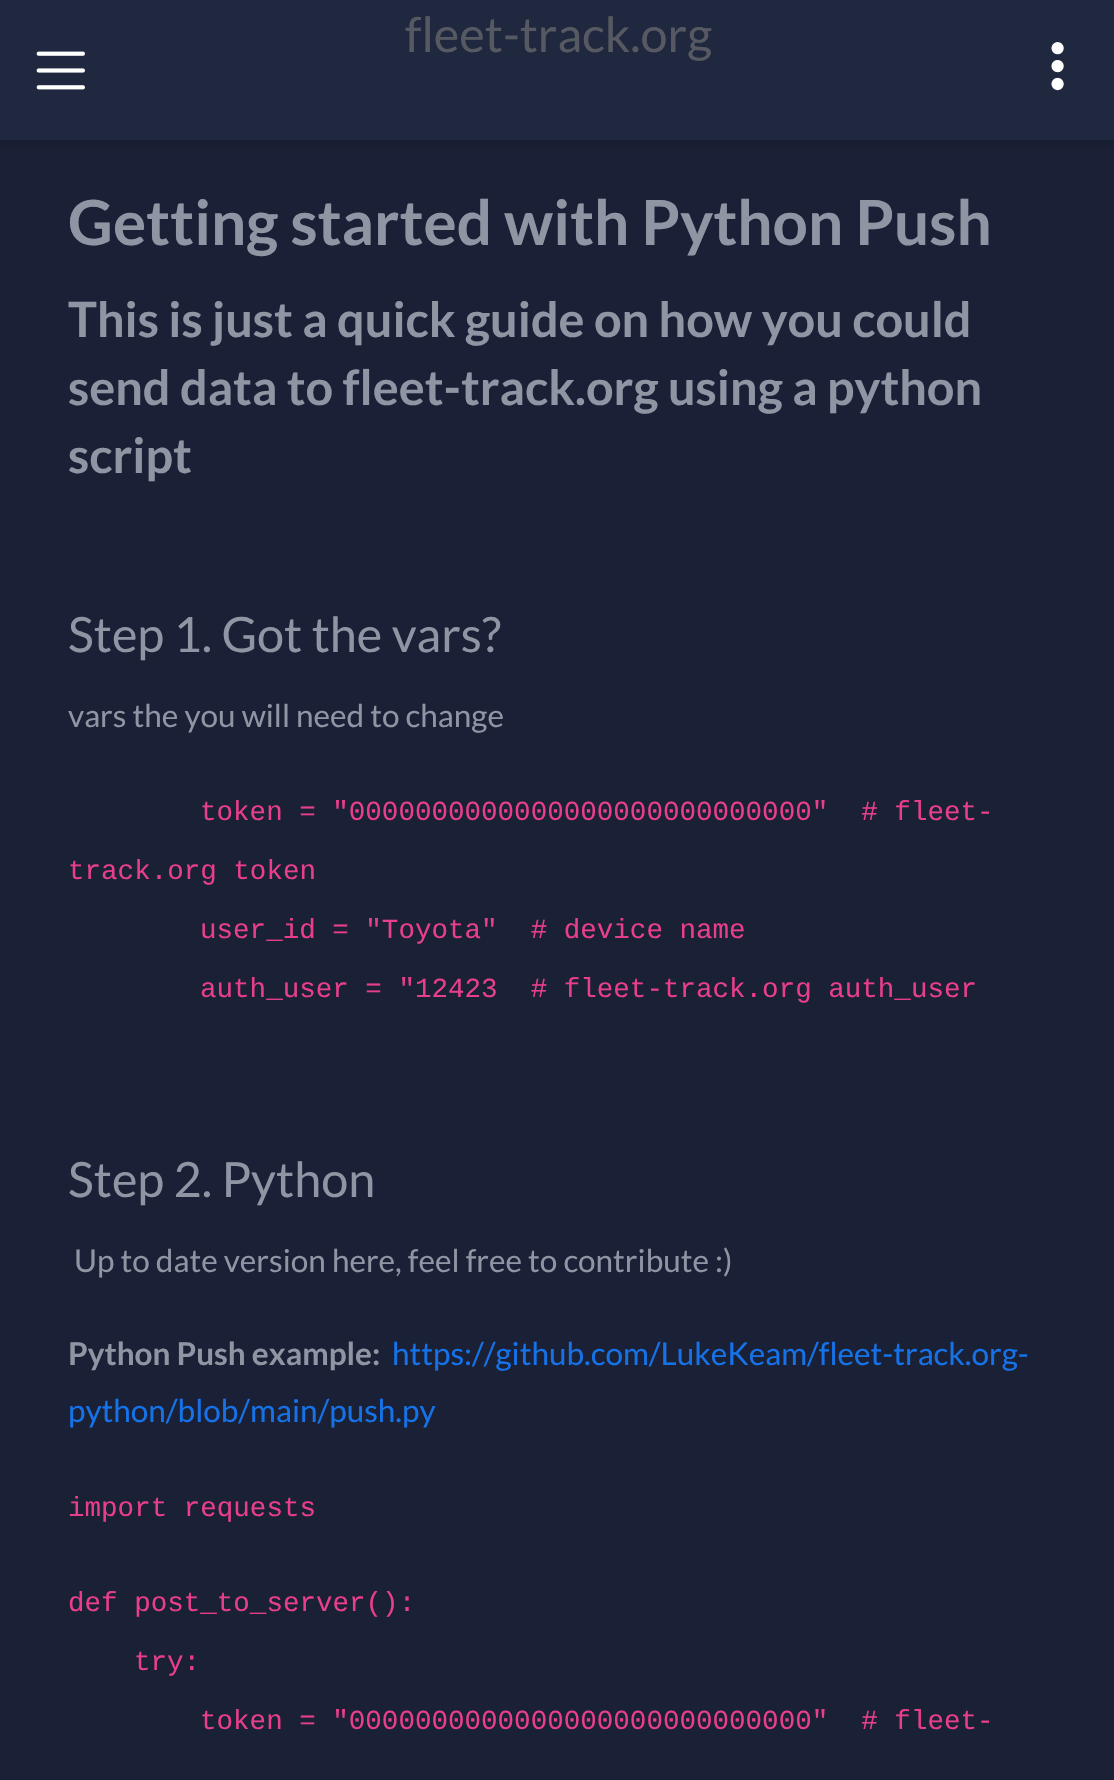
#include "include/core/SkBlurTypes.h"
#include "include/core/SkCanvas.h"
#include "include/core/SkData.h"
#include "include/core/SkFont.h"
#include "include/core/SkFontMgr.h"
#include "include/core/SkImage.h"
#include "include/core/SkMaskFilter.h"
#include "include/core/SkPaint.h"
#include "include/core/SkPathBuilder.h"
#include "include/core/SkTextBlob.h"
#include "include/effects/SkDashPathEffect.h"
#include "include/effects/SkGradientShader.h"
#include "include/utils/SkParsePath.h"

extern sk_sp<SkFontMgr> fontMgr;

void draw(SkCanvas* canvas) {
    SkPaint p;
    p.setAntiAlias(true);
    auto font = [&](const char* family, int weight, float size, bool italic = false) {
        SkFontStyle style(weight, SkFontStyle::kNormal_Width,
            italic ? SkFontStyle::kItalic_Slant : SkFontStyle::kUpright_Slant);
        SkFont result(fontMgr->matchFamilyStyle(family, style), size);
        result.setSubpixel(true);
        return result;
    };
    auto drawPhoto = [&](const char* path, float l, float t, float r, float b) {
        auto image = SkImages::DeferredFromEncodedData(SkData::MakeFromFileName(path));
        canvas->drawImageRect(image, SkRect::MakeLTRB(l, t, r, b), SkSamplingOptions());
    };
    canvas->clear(0xFF1A2035);
    p.setColor(0xFF121727);
    p.setMaskFilter(SkMaskFilter::MakeBlur(kNormal_SkBlurStyle, 5.5f));
    canvas->drawRect(SkRect::MakeLTRB(0, 0, 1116, 140), p);
    p.setMaskFilter(nullptr);
    p.setColor(0xFF1F283E);
    canvas->drawRect(SkRect::MakeLTRB(0, 0, 1114, 140), p);
    drawPhoto("media/1.png", 36, 51, 85, 90);
    auto font1 = font("Lato", 400, 48.6f);
    p.setColor(0xFF575962);
    canvas->drawString("fleet-track.org", 405, 52, font1, p);
    drawPhoto("media/2.png", 1051, 42, 1064, 91);
    auto font2 = font("Lato", 700, 62.1f);
    p.setColor(0xFF8F95A3);
    canvas->drawString("Getting started with Python Push", 68, 245, font2, p);
    auto font3 = font("Lato", 700, 48.6f);
    {
        const struct { const char* s; float x, y; } items[] = {
            {"This is just a quick guide on how you could", 68, 337},
            {"send data to fleet-track.org using a python", 68, 405},
            {"script", 68, 473},
        };
        for (auto [s, x, y] : items) {
            canvas->drawString(s, x, y, font3, p);
        }
    }
    canvas->drawString("Step 1. Got the vars?", 68, 652, font1, p);
    auto font4 = font("Lato", 400, 31.5f);
    canvas->drawString("vars the you will need to change", 68, 727, font4, p);
    auto font5 = font("Liberation Mono", 400, 27.55f);
    p.setColor(0xFFE83E8C);
    {
        const struct { const char* s; float x, y; } items[] = {
            {"token = \"0000000000000000000000000000\"  # fleet-", 200, 820},
            {"track.org token", 68, 879},
            {"user_id = \"Toyota\"  # device name", 200, 938},
            {"auth_user = \"12423  # fleet-track.org auth_user", 200, 997},
        };
        for (auto [s, x, y] : items) {
            canvas->drawString(s, x, y, font5, p);
        }
    }
    p.setColor(0xFF8F95A3);
    canvas->drawString("Step 2. Python", 68, 1197, font1, p);
    canvas->drawString("Up to date version here, feel free to contribute :)", 74, 1272, font4, p);
    auto font6 = font("Lato", 700, 31.5f);
    canvas->drawString("Python Push example:", 68, 1365, font6, p);
    p.setColor(0xFF1572E8);
    canvas->drawString("https://github.com/LukeKeam/fleet-track.org-", 392, 1365, font4, p);
    canvas->drawString("python/blob/main/push.py", 68, 1422, font4, p);
    p.setColor(0xFFE83E8C);
    {
        const struct { const char* s; float x, y; } items[] = {
            {"import requests", 68, 1516},
            {"def post_to_server():", 68, 1611},
            {"try:", 134, 1670},
            {"token = \"0000000000000000000000000000\"  # fleet-", 200, 1729},
        };
        for (auto [s, x, y] : items) {
            canvas->drawString(s, x, y, font5, p);
        }
    }
}
